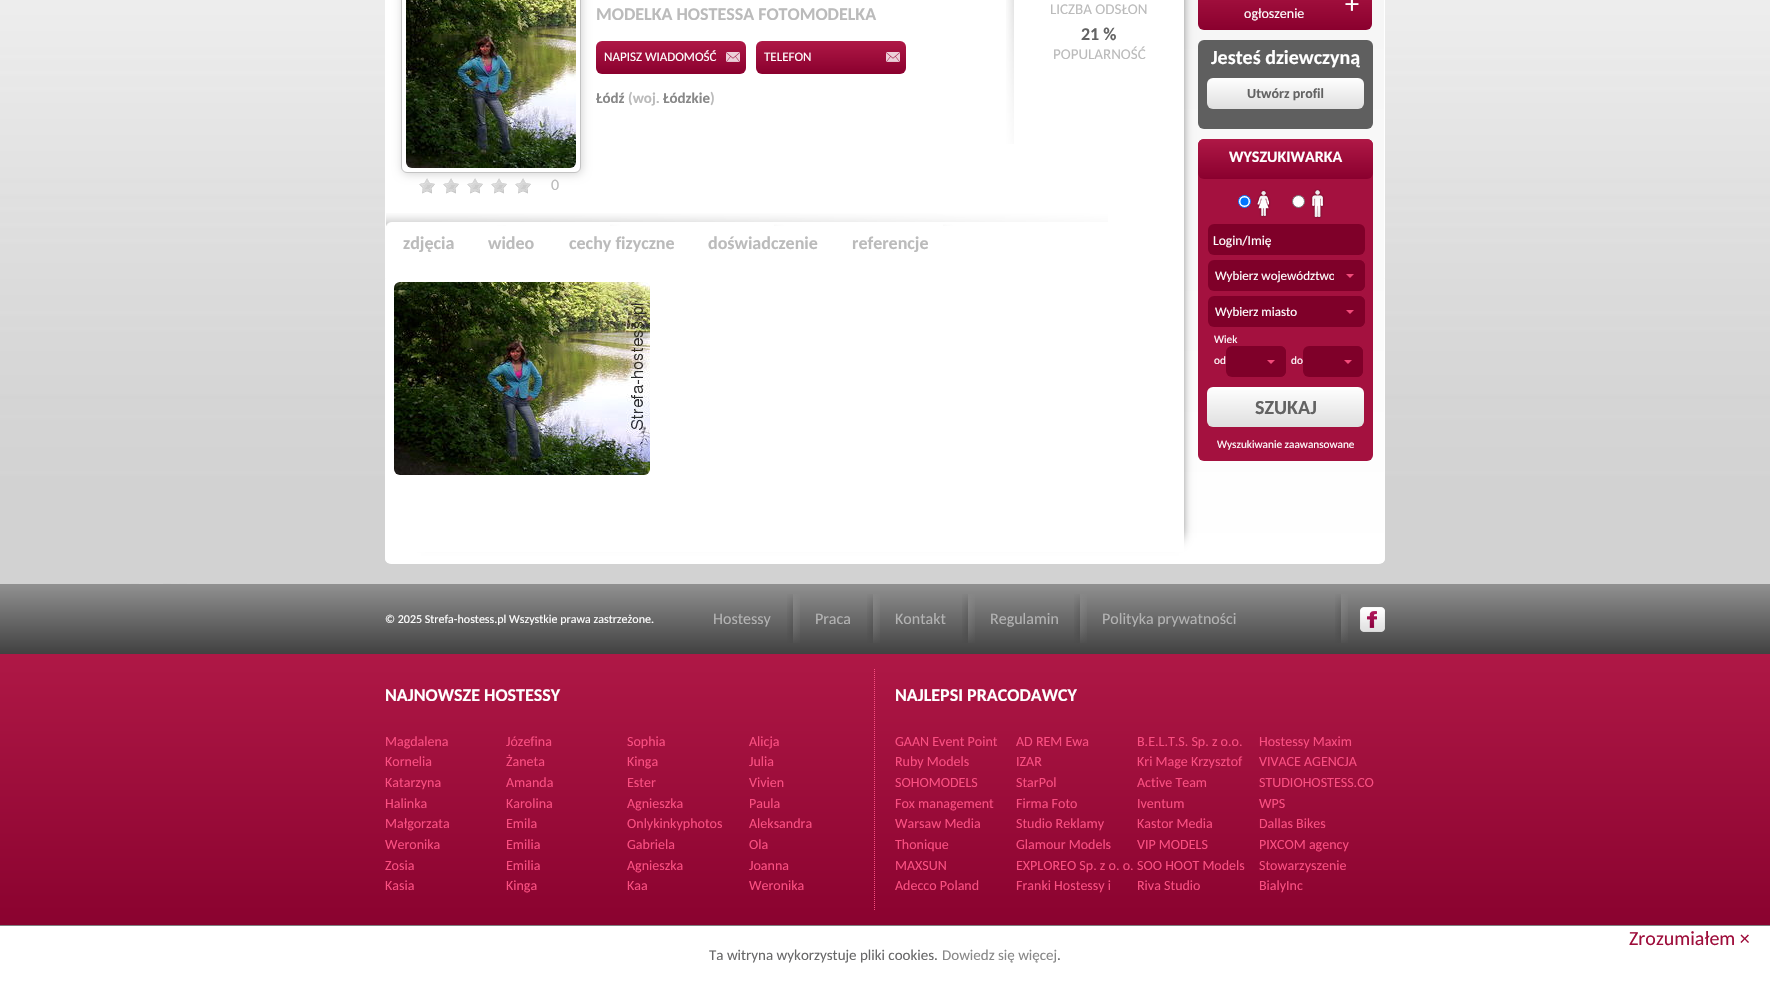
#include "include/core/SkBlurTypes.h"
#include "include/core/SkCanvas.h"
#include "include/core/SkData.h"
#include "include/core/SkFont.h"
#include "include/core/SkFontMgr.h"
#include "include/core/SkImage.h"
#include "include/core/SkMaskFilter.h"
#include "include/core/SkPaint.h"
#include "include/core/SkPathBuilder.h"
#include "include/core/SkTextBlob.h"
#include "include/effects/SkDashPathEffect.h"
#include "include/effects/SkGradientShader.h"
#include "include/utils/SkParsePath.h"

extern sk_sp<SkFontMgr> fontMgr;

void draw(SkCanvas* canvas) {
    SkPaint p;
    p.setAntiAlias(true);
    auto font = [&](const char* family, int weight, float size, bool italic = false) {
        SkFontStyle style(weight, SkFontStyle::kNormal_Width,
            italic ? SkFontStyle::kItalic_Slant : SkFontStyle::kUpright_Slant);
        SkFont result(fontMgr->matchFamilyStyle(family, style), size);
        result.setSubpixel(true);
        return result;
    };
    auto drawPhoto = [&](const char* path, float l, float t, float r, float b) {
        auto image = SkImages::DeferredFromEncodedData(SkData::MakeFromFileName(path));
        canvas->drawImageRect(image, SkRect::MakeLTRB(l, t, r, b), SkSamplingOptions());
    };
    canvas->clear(0xFFFFFFFF);
    drawPhoto("media/1.png", 0, 0, 1770, 584);
    canvas->save();
    canvas->clipPath(SkPathBuilder().moveTo(391, -43).lineTo(1379, -43).cubicTo(1382.5f, -43, 1385, -40.5f, 1385, -37).lineTo(1385, 558).cubicTo(1385, 561.5f, 1382.5f, 564, 1379, 564).lineTo(391, 564).cubicTo(387.5f, 564, 385, 561.5f, 385, 558).lineTo(385, -37).cubicTo(385, -40.5f, 387.5f, -43, 391, -43).close().detach(), true);
    {
        const SkColor colors[] = {0xFFF5F5F5, 0xFFFFFFFF};
        const float stops[] = {0, 1};
        const SkPoint ends[] = {{885, -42}, {885, 563}};
        p.setShader(SkGradientShader::MakeLinear(ends, colors, stops, 2, SkTileMode::kClamp));
        p.setAlpha(255);
    }
    canvas->drawRect(SkRect::MakeLTRB(385, 0, 1385, 563), p);
    canvas->restore();
    p.setStyle(SkPaint::kStroke_Style);
    p.setStrokeWidth(1);
    p.setShader(nullptr);
    p.setColor(0xFFFFFFFF);
    canvas->drawRoundRect(SkRect::MakeLTRB(385.5f, -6.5f, 1384.5f, 563.5f), 5.5f, 5.5f, p);
    p.setStyle(SkPaint::kFill_Style);
    p.setColor(0xFF000000);
    p.setMaskFilter(SkMaskFilter::MakeBlur(kNormal_SkBlurStyle, 6));
    canvas->drawRect(SkRect::MakeLTRB(421, -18, 1179, 538), p);
    p.setMaskFilter(nullptr);
    p.setColor(0xFFFFFFFF);
    canvas->drawRect(SkRect::MakeLTRB(386, 0, 1184, 552), p);
    drawPhoto("media/5.png", 419, 178, 435, 194);
    drawPhoto("media/5.png", 443, 178, 459, 194);
    drawPhoto("media/5.png", 467, 178, 483, 194);
    drawPhoto("media/5.png", 491, 178, 507, 194);
    drawPhoto("media/5.png", 515, 178, 531, 194);
    p.setColor(0xFFD3D3D3);
    p.setMaskFilter(SkMaskFilter::MakeBlur(kNormal_SkBlurStyle, 5));
    canvas->drawRoundRect(SkRect::MakeLTRB(402, -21, 582, 174), 6, 6, p);
    p.setMaskFilter(nullptr);
    auto font1 = font("Carlito", 700, 18);
    p.setColor(0xFFBBBBBB);
    canvas->drawString("MODELKA HOSTESSA FOTOMODELKA", 596, 20, font1, p);
    {
        const SkColor colors[] = {0xFFAF1846, 0xFF8A002E};
        const float stops[] = {0, 1};
        const SkPoint ends[] = {{671, 41}, {671, 74}};
        p.setShader(SkGradientShader::MakeLinear(ends, colors, stops, 2, SkTileMode::kClamp));
        p.setAlpha(255);
    }
    canvas->drawRoundRect(SkRect::MakeLTRB(596, 41, 746, 74), 6, 6, p);
    drawPhoto("media/2.png", 726, 52, 740, 62);
    auto font2 = font("Carlito", 400, 13);
    p.setShader(nullptr);
    p.setColor(0xFFFFFFFF);
    canvas->drawString("NAPISZ WIADOMOŚĆ", 604, 61, font2, p);
    {
        const SkColor colors[] = {0xFFAF1846, 0xFF8A002E};
        const float stops[] = {0, 1};
        const SkPoint ends[] = {{831, 41}, {831, 74}};
        p.setShader(SkGradientShader::MakeLinear(ends, colors, stops, 2, SkTileMode::kClamp));
        p.setAlpha(255);
    }
    canvas->drawRoundRect(SkRect::MakeLTRB(756, 41, 906, 74), 6, 6, p);
    drawPhoto("media/2.png", 886, 52, 900, 62);
    p.setShader(nullptr);
    p.setColor(0xFFFFFFFF);
    canvas->drawString("TELEFON", 764, 61, font2, p);
    auto font3 = font("Carlito", 700, 15);
    p.setColor(0xFF888888);
    canvas->drawString("Łódź", 596, 103, font3, p);
    p.setColor(0xFFBBBBBB);
    canvas->drawString("(woj.", 628, 103, font3, p);
    p.setColor(0xFF888888);
    canvas->drawString("Łódzkie", 663, 103, font3, p);
    p.setColor(0xFFBBBBBB);
    canvas->drawString(")", 710, 103, font3, p);
    drawPhoto("media/3.png", 1006, 0, 1014, 144);
    auto font4 = font("Carlito", 400, 15);
    canvas->drawString("LICZBA ODSŁON", 1050, 14, font4, p);
    p.setColor(0xFF636363);
    canvas->drawString("21 %", 1081, 40, font1, p);
    p.setColor(0xFFBBBBBB);
    canvas->drawString("POPULARNOŚĆ", 1053, 59, font4, p);
    p.setColor(0xFFFFFFFF);
    canvas->drawRoundRect(SkRect::MakeLTRB(401.5f, -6.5f, 580.5f, 172.5f), 5.5f, 5.5f, p);
    p.setStyle(SkPaint::kStroke_Style);
    p.setColor(0xFFC3C3C3);
    canvas->drawRoundRect(SkRect::MakeLTRB(401.5f, -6.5f, 580.5f, 172.5f), 5.5f, 5.5f, p);
    drawPhoto("media/4.png", 406, 0, 576, 168);
    auto font5 = font("Carlito", 400, 16);
    p.setStyle(SkPaint::kFill_Style);
    p.setColor(0xFFBBBBBB);
    canvas->drawString("0", 551, 190, font5, p);
    drawPhoto("media/6.png", 386, 213, 1108, 226);
    {
        const struct { const char* s; float x, y; } items[] = {
            {"zdjęcia", 403, 249},
            {"wideo", 488, 249},
            {"cechy fizyczne", 569, 249},
            {"doświadczenie", 708, 249},
            {"referencje", 852, 249},
        };
        for (auto [s, x, y] : items) {
            canvas->drawString(s, x, y, font1, p);
        }
    }
    drawPhoto("media/7.png", 394, 282, 650, 475);
    {
        const SkColor colors[] = {0xFFAF1846, 0xFF8A002E};
        const float stops[] = {0, 1};
        const SkPoint ends[] = {{1285, -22}, {1285, 30}};
        p.setShader(SkGradientShader::MakeLinear(ends, colors, stops, 2, SkTileMode::kClamp));
        p.setAlpha(255);
    }
    canvas->drawRoundRect(SkRect::MakeLTRB(1198, -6, 1372, 30), 6, 6, p);
    auto font6 = font("Carlito", 400, 28);
    p.setShader(nullptr);
    p.setColor(0xFFFFFFFF);
    canvas->drawString("+", 1345, 13, font6, p);
    auto font7 = font("Carlito", 400, 14);
    canvas->drawString("ogłoszenie", 1244, 18, font7, p);
    p.setColor(0xFF5F5F5F);
    canvas->drawRoundRect(SkRect::MakeLTRB(1198, 40, 1373, 129), 6, 6, p);
    auto font8 = font("Carlito", 700, 20);
    p.setColor(0xFFFFFFFF);
    canvas->drawString("Jesteś dziewczyną", 1211, 64, font8, p);
    {
        const SkColor colors[] = {0xFFFFFFFF, 0xFFDFDFDF};
        const float stops[] = {0, 1};
        const SkPoint ends[] = {{1286, 78}, {1286, 109}};
        p.setShader(SkGradientShader::MakeLinear(ends, colors, stops, 2, SkTileMode::kClamp));
        p.setAlpha(255);
    }
    canvas->drawRoundRect(SkRect::MakeLTRB(1207, 78, 1364, 109), 6, 6, p);
    auto font9 = font("Carlito", 700, 14);
    p.setShader(nullptr);
    p.setColor(0xFF636363);
    canvas->drawString("Utwórz profil", 1247, 98, font9, p);
    p.setColor(0xFFA4113F);
    canvas->drawRoundRect(SkRect::MakeLTRB(1198, 139, 1373, 461), 6, 6, p);
    {
        const SkColor colors[] = {0xFFAF1846, 0xFF8A002E};
        const float stops[] = {0, 1};
        const SkPoint ends[] = {{1286, 139}, {1286, 179}};
        p.setShader(SkGradientShader::MakeLinear(ends, colors, stops, 2, SkTileMode::kClamp));
        p.setAlpha(255);
    }
    canvas->drawRoundRect(SkRect::MakeLTRB(1198, 139, 1373, 179), 6, 6, p);
    auto font10 = font("Carlito", 700, 16);
    p.setShader(nullptr);
    p.setColor(0xFFFFFFFF);
    canvas->drawString("WYSZUKIWARKA", 1229, 162, font10, p);
    canvas->drawCircle(1244.5f, 201.5f, 6, p);
    p.setStyle(SkPaint::kStroke_Style);
    p.setColor(0xFF0075FF);
    canvas->drawCircle(1244.5f, 201.5f, 6, p);
    p.setStyle(SkPaint::kFill_Style);
    canvas->drawCircle(1244.5f, 201.5f, 4, p);
    drawPhoto("media/8.png", 1256, 189, 1271, 218);
    p.setColor(0xFFFFFFFF);
    canvas->drawCircle(1298.5f, 201.5f, 6, p);
    p.setStyle(SkPaint::kStroke_Style);
    p.setColor(0xFF767676);
    canvas->drawCircle(1298.5f, 201.5f, 6, p);
    drawPhoto("media/9.png", 1310, 189, 1325, 219);
    p.setStyle(SkPaint::kFill_Style);
    p.setColor(0xFF7F0029);
    canvas->drawRoundRect(SkRect::MakeLTRB(1208, 224, 1365, 255), 6, 6, p);
    auto font11 = font("Carlito", 400, 13.5f);
    p.setColor(0xFFFFFFFF);
    canvas->drawString("Login/Imię", 1213, 245, font11, p);
    p.setColor(0xFF7F0029);
    canvas->drawRoundRect(SkRect::MakeLTRB(1208, 260, 1365, 291), 6, 6, p);
    p.setColor(0xFFFFFFFF);
    canvas->drawString("Wybierz województwo", 1215, 280, font2, p);
    p.setColor(0xFF7F0029);
    canvas->drawRoundRect(SkRect::MakeLTRB(1334, 260, 1365, 291), 6, 6, p);
    drawPhoto("media/10.png", 1346, 274, 1354, 278);
    canvas->drawRoundRect(SkRect::MakeLTRB(1208, 296, 1365, 327), 6, 6, p);
    p.setColor(0xFFFFFFFF);
    canvas->drawString("Wybierz miasto", 1215, 316, font2, p);
    p.setColor(0xFF7F0029);
    canvas->drawRoundRect(SkRect::MakeLTRB(1334, 296, 1365, 327), 6, 6, p);
    drawPhoto("media/10.png", 1346, 310, 1354, 314);
    auto font12 = font("Carlito", 400, 11.25f);
    p.setColor(0xFFFFFFFF);
    canvas->drawString("Wiek", 1214, 343, font12, p);
    canvas->drawString("od", 1214, 364, font12, p);
    p.setColor(0xFF7F0029);
    canvas->drawRoundRect(SkRect::MakeLTRB(1226, 346, 1286, 377), 6, 6, p);
    canvas->drawRoundRect(SkRect::MakeLTRB(1255, 346, 1286, 377), 6, 6, p);
    drawPhoto("media/10.png", 1267, 360, 1275, 364);
    p.setColor(0xFFFFFFFF);
    canvas->drawString("do", 1291, 364, font12, p);
    p.setColor(0xFF7F0029);
    canvas->drawRoundRect(SkRect::MakeLTRB(1303, 346, 1363, 377), 6, 6, p);
    canvas->drawRoundRect(SkRect::MakeLTRB(1332, 346, 1363, 377), 6, 6, p);
    drawPhoto("media/10.png", 1344, 360, 1352, 364);
    {
        const SkColor colors[] = {0xFFFFFFFF, 0xFFDFDFDF};
        const float stops[] = {0, 1};
        const SkPoint ends[] = {{1286, 387}, {1286, 427}};
        p.setShader(SkGradientShader::MakeLinear(ends, colors, stops, 2, SkTileMode::kClamp));
        p.setAlpha(255);
    }
    canvas->drawRoundRect(SkRect::MakeLTRB(1207, 387, 1364, 427), 6, 6, p);
    p.setShader(nullptr);
    p.setColor(0xFF636363);
    canvas->drawString("SZUKAJ", 1255, 414, font8, p);
    p.setColor(0xFFFFFFFF);
    canvas->drawString("Wyszukiwanie zaawansowane", 1217, 448, font12, p);
    {
        const SkColor colors[] = {0xFF919191, 0xFF414141};
        const float stops[] = {0, 1};
        const SkPoint ends[] = {{885, 584}, {885, 654}};
        p.setShader(SkGradientShader::MakeLinear(ends, colors, stops, 2, SkTileMode::kClamp));
        p.setAlpha(255);
    }
    canvas->drawRect(SkRect::MakeLTRB(0, 584, 1770, 654), p);
    auto font13 = font("Carlito", 400, 12);
    p.setShader(nullptr);
    p.setColor(0xFFFFFFFF);
    canvas->drawString("© 2025 Strefa-hostess.pl Wszystkie prawa zastrzeżone.", 385, 623, font13, p);
    p.setColor(0xFFB3B3B3);
    canvas->drawString("Hostessy", 713, 624, font5, p);
    drawPhoto("media/11.png", 787, 594, 800, 643);
    canvas->drawString("Praca", 815, 624, font5, p);
    drawPhoto("media/11.png", 867, 594, 880, 643);
    canvas->drawString("Kontakt", 895, 624, font5, p);
    drawPhoto("media/11.png", 962, 594, 975, 643);
    canvas->drawString("Regulamin", 990, 624, font5, p);
    drawPhoto("media/11.png", 1074, 594, 1087, 643);
    canvas->drawString("Polityka prywatności", 1102, 624, font5, p);
    drawPhoto("media/11.png", 1335, 594, 1348, 643);
    drawPhoto("media/12.png", 1360, 607, 1385, 632);
    {
        const SkColor colors[] = {0xFFAF1846, 0xFF8A022F};
        const float stops[] = {0, 1};
        const SkPoint ends[] = {{885, 654}, {885, 926}};
        p.setShader(SkGradientShader::MakeLinear(ends, colors, stops, 2, SkTileMode::kClamp));
        p.setAlpha(255);
    }
    canvas->drawRect(SkRect::MakeLTRB(0, 654, 1770, 925), p);
    p.setShader(nullptr);
    p.setColor(0xFFFFFFFF);
    canvas->drawString("NAJNOWSZE HOSTESSY", 385, 701, font1, p);
    p.setColor(0xFFFB4F81);
    {
        const struct { const char* s; float x, y; } items[] = {
            {"Magdalena", 385, 746},
            {"Józefina", 506, 746},
            {"Sophia", 627, 746},
            {"Alicja", 749, 746},
            {"Kornelia", 385, 766},
            {"Żaneta", 506, 766},
            {"Kinga", 627, 766},
            {"Julia", 749, 766},
            {"Katarzyna", 385, 787},
            {"Amanda", 506, 787},
            {"Ester", 627, 787},
            {"Vivien", 749, 787},
            {"Halinka", 385, 808},
            {"Karolina", 506, 808},
            {"Agnieszka", 627, 808},
            {"Paula", 749, 808},
            {"Małgorzata", 385, 828},
            {"Emila", 506, 828},
            {"Onlykinkyphotos", 627, 828},
            {"Aleksandra", 749, 828},
            {"Weronika", 385, 849},
            {"Emilia", 506, 849},
            {"Gabriela", 627, 849},
            {"Ola", 749, 849},
            {"Zosia", 385, 870},
            {"Emilia", 506, 870},
            {"Agnieszka", 627, 870},
            {"Joanna", 749, 870},
            {"Kasia", 385, 890},
            {"Kinga", 506, 890},
            {"Kaa", 627, 890},
            {"Weronika", 749, 890},
        };
        for (auto [s, x, y] : items) {
            canvas->drawString(s, x, y, font7, p);
        }
    }
    p.setStyle(SkPaint::kStroke_Style);
    p.setPathEffect(SkDashPathEffect::Make({{1, 1}}, 0));
    canvas->drawPath(SkPathBuilder().moveTo(874.5f, 669).lineTo(874.5f, 911).detach(), p);
    p.setPathEffect(nullptr);
    p.setStyle(SkPaint::kFill_Style);
    p.setColor(0xFFFFFFFF);
    canvas->drawString("NAJLEPSI PRACODAWCY", 895, 701, font1, p);
    p.setColor(0xFFFB4F81);
    {
        const struct { const char* s; float x, y; } items[] = {
            {"GAAN Event Point", 895, 746},
            {"AD REM Ewa", 1016, 746},
            {"B.E.L.T.S. Sp. z o.o.", 1137, 746},
            {"Hostessy Maxim", 1259, 746},
            {"Ruby Models", 895, 766},
            {"IZAR", 1016, 766},
            {"Kri Mage Krzysztof", 1137, 766},
            {"VIVACE AGENCJA", 1259, 766},
            {"SOHOMODELS", 895, 787},
            {"StarPol", 1016, 787},
            {"Active Team", 1137, 787},
            {"STUDIOHOSTESS.CO", 1259, 787},
            {"Fox management", 895, 808},
            {"Firma Foto", 1016, 808},
            {"Iventum", 1137, 808},
            {"WPS", 1259, 808},
            {"Warsaw Media", 895, 828},
            {"Studio Reklamy", 1016, 828},
            {"Kastor Media", 1137, 828},
            {"Dallas Bikes", 1259, 828},
            {"Thonique", 895, 849},
            {"Glamour Models", 1016, 849},
            {"VIP MODELS", 1137, 849},
            {"PIXCOM agency", 1259, 849},
            {"MAXSUN", 895, 870},
            {"EXPLOREO Sp. z o. o.", 1016, 870},
            {"SOO HOOT Models", 1137, 870},
            {"Stowarzyszenie", 1259, 870},
            {"Adecco Poland", 895, 890},
            {"Franki Hostessy i", 1016, 890},
            {"Riva Studio", 1137, 890},
            {"BialyInc", 1259, 890},
        };
        for (auto [s, x, y] : items) {
            canvas->drawString(s, x, y, font7, p);
        }
    }
    p.setColor(0xFF808080);
    canvas->drawRect(SkRect::MakeLTRB(0, 925, 1770, 926), p);
    auto font14 = font("Carlito", 400, 20);
    p.setColor(0xFF9E0D3B);
    canvas->drawString("Zrozumiałem ×", 1629, 945, font14, p);
    p.setColor(0xFF686869);
    canvas->drawString("Ta witryna wykorzystuje pliki cookies.", 709, 960, font4, p);
    p.setColor(0xFF888888);
    canvas->drawString("Dowiedz się więcej", 942, 960, font4, p);
    p.setColor(0xFF686869);
    canvas->drawString(".", 1057, 960, font4, p);
}
